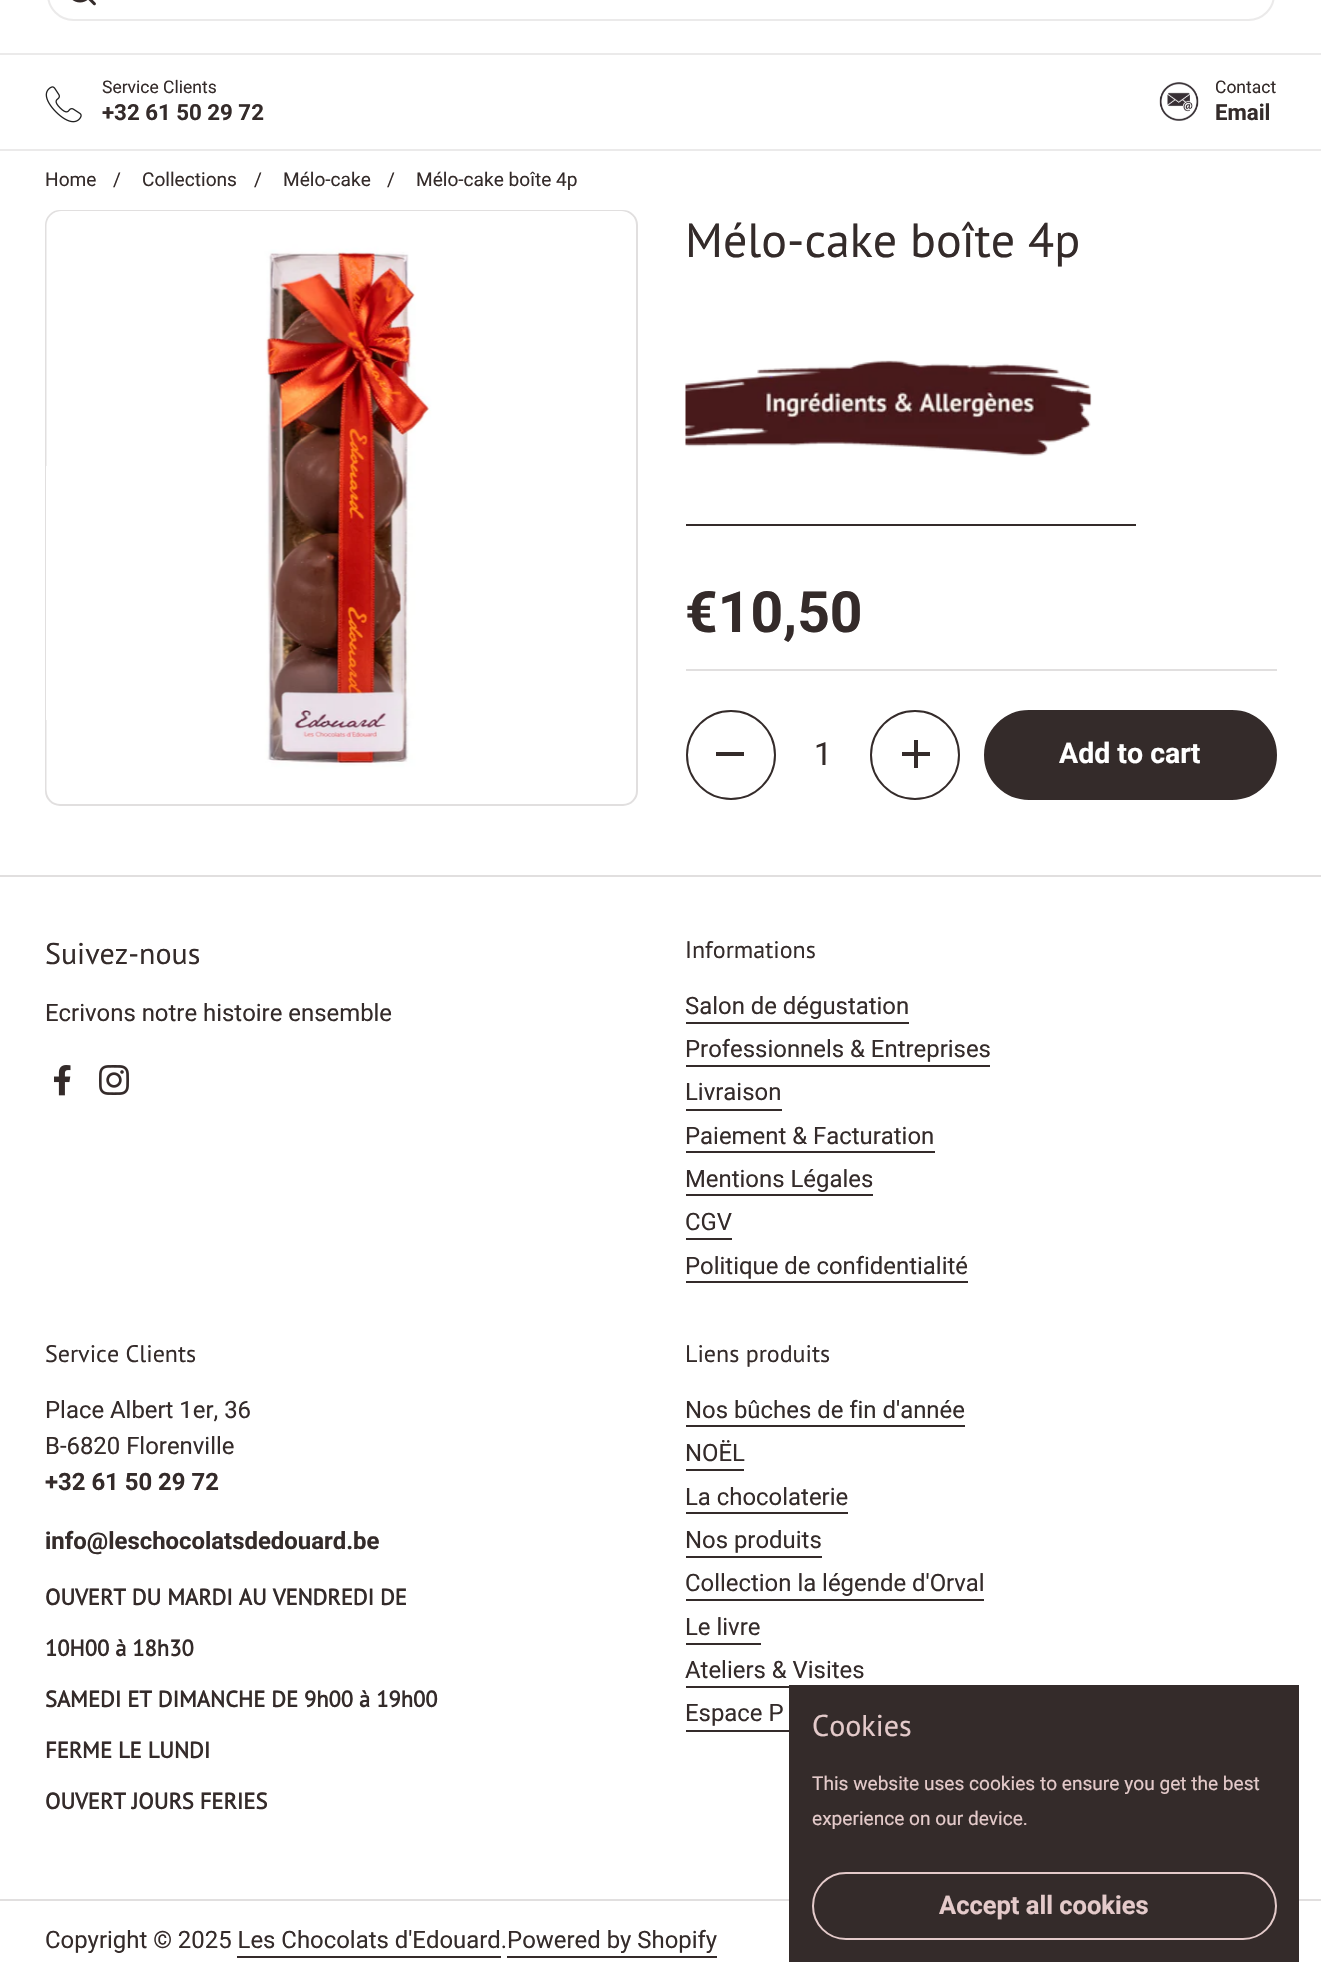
#include "include/core/SkBlurTypes.h"
#include "include/core/SkCanvas.h"
#include "include/core/SkData.h"
#include "include/core/SkFont.h"
#include "include/core/SkFontMgr.h"
#include "include/core/SkImage.h"
#include "include/core/SkMaskFilter.h"
#include "include/core/SkPaint.h"
#include "include/core/SkPathBuilder.h"
#include "include/core/SkTextBlob.h"
#include "include/effects/SkDashPathEffect.h"
#include "include/effects/SkGradientShader.h"
#include "include/utils/SkParsePath.h"

extern sk_sp<SkFontMgr> fontMgr;

void draw(SkCanvas* canvas) {
    SkPaint p;
    p.setAntiAlias(true);
    auto font = [&](const char* family, int weight, float size, bool italic = false) {
        SkFontStyle style(weight, SkFontStyle::kNormal_Width,
            italic ? SkFontStyle::kItalic_Slant : SkFontStyle::kUpright_Slant);
        SkFont result(fontMgr->matchFamilyStyle(family, style), size);
        result.setSubpixel(true);
        return result;
    };
    auto drawPhoto = [&](const char* path, float l, float t, float r, float b) {
        auto image = SkImages::DeferredFromEncodedData(SkData::MakeFromFileName(path));
        canvas->drawImageRect(image, SkRect::MakeLTRB(l, t, r, b), SkSamplingOptions());
    };
    canvas->clear(0xFFFFFFFF);
    p.setColor(0xFFEBEAEA);
    canvas->drawRect(SkRect::MakeLTRB(0, 53, 1321, 55), p);
    p.setStyle(SkPaint::kStroke_Style);
    p.setStrokeWidth(2);
    canvas->drawRoundRect(SkRect::MakeLTRB(48, -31, 1274, 20), 29, 29, p);
    drawPhoto("media/1.png", 72, 0, 96, 6);
    p.setStyle(SkPaint::kFill_Style);
    canvas->drawRect(SkRect::MakeLTRB(0, 149, 1321, 151), p);
    drawPhoto("media/2.png", 45, 86, 82, 123);
    auto font1 = font("Roboto", 400, 17.5f);
    p.setColor(0xFF342B2A);
    canvas->drawString("Service Clients", 102, 93, font1, p);
    auto font2 = font("Roboto", 700, 22.25f);
    canvas->drawString("+32 61 50 29 72", 102, 120, font2, p);
    drawPhoto("media/3.png", 1159, 82, 1199, 121);
    canvas->drawString("Contact", 1215, 93, font1, p);
    canvas->drawString("Email", 1215, 120, font2, p);
    auto font3 = font("Roboto", 400, 19.1f);
    {
        const struct { const char* s; float x, y; } items[] = {
            {"Home", 45, 186},
            {"/", 113, 186},
            {"Collections", 142, 186},
            {"/", 254, 186},
            {"Mélo-cake", 283, 186},
            {"/", 387, 186},
            {"Mélo-cake boîte 4p", 416, 186},
        };
        for (auto [s, x, y] : items) {
            canvas->drawString(s, x, y, font3, p);
        }
    }
    p.setStyle(SkPaint::kStroke_Style);
    p.setColor(0xFFE1DFDF);
    canvas->drawRoundRect(SkRect::MakeLTRB(46, 211, 637, 805), 14, 14, p);
    drawPhoto("media/4.png", 46, 211, 634, 795);
    auto font4 = font("PT Sans", 400, 48);
    p.setStyle(SkPaint::kFill_Style);
    p.setColor(0xFF342B2A);
    canvas->drawString("Mélo-cake boîte 4p", 685, 257, font4, p);
    drawPhoto("media/5.png", 685, 360, 1092, 456);
    canvas->drawRect(SkRect::MakeLTRB(686, 524, 1136, 526), p);
    auto font5 = font("Roboto", 700, 57);
    canvas->drawString("€10,50", 685, 632, font5, p);
    p.setColor(0xFFE1DFDF);
    canvas->drawRect(SkRect::MakeLTRB(686, 669, 1277, 671), p);
    p.setStyle(SkPaint::kStroke_Style);
    p.setColor(0xFF342B2A);
    canvas->drawCircle(731, 755, 44, p);
    p.setStyle(SkPaint::kFill_Style);
    canvas->drawRect(SkRect::MakeLTRB(716, 752, 744, 756), p);
    auto font6 = font("Roboto", 400, 32);
    canvas->drawString("1", 814, 765, font6, p);
    p.setStyle(SkPaint::kStroke_Style);
    canvas->drawCircle(915, 755, 44, p);
    p.setStyle(SkPaint::kFill_Style);
    canvas->drawRect(SkRect::MakeLTRB(914, 740, 918, 768), p);
    canvas->drawRect(SkRect::MakeLTRB(902, 752, 930, 756), p);
    canvas->drawRoundRect(SkRect::MakeLTRB(985, 711, 1276, 799), 44, 44, p);
    p.setStyle(SkPaint::kStroke_Style);
    canvas->drawRoundRect(SkRect::MakeLTRB(985, 711, 1276, 799), 44, 44, p);
    auto font7 = font("Roboto", 700, 28.5f);
    p.setStyle(SkPaint::kFill_Style);
    p.setColor(0xFFFFFFFF);
    canvas->drawString("Add to cart", 1059, 763, font7, p);
    p.setColor(0xFFE1DFDF);
    canvas->drawRect(SkRect::MakeLTRB(0, 875, 1321, 877), p);
    auto font8 = font("PT Sans", 400, 30);
    p.setColor(0xFF342B2A);
    canvas->drawString("Suivez-nous", 45, 964, font8, p);
    auto font9 = font("Roboto", 400, 23.9f);
    canvas->drawString("Ecrivons notre histoire ensemble", 45, 1021, font9, p);
    drawPhoto("media/6.png", 54, 1065, 71, 1096);
    drawPhoto("media/7.png", 99, 1065, 129, 1095);
    auto font10 = font("PT Sans", 400, 24);
    canvas->drawString("Informations", 685, 958, font10, p);
    canvas->drawString("Salon de dégustation", 685, 1014, font9, p);
    canvas->drawRect(SkRect::MakeLTRB(686, 1022, 909, 1024), p);
    canvas->drawString("Professionnels & Entreprises", 685, 1057, font9, p);
    canvas->drawRect(SkRect::MakeLTRB(686, 1065, 990, 1067), p);
    canvas->drawString("Livraison", 685, 1100, font9, p);
    canvas->drawRect(SkRect::MakeLTRB(686, 1109, 782, 1111), p);
    canvas->drawString("Paiement & Facturation", 685, 1144, font9, p);
    canvas->drawRect(SkRect::MakeLTRB(686, 1151, 935, 1153), p);
    canvas->drawString("Mentions Légales", 685, 1187, font9, p);
    canvas->drawRect(SkRect::MakeLTRB(686, 1194, 873, 1196), p);
    canvas->drawString("CGV", 685, 1230, font9, p);
    canvas->drawRect(SkRect::MakeLTRB(686, 1238, 732, 1240), p);
    canvas->drawString("Politique de confidentialité", 685, 1274, font9, p);
    canvas->drawRect(SkRect::MakeLTRB(686, 1281, 968, 1283), p);
    canvas->drawString("Service Clients", 45, 1362, font10, p);
    canvas->drawString("Place Albert 1er, 36", 45, 1418, font9, p);
    canvas->drawString("B-6820 Florenville", 45, 1454, font9, p);
    auto font11 = font("Roboto", 700, 23.9f);
    canvas->drawString("+32 61 50 29 72", 45, 1490, font11, p);
    canvas->drawString("info@leschocolatsdedouard.be", 45, 1549, font11, p);
    auto font12 = font("PT Sans", 700, 22.5f);
    {
        const struct { const char* s; float x, y; } items[] = {
            {"OUVERT DU MARDI AU VENDREDI DE", 45, 1605},
            {"10H00 à 18h30", 45, 1656},
            {"SAMEDI ET DIMANCHE DE 9h00 à 19h00", 45, 1707},
            {"FERME LE LUNDI", 45, 1758},
            {"OUVERT JOURS FERIES", 45, 1809},
        };
        for (auto [s, x, y] : items) {
            canvas->drawString(s, x, y, font12, p);
        }
    }
    canvas->drawString("Liens produits", 685, 1362, font10, p);
    canvas->drawString("Nos bûches de fin d'année", 685, 1418, font9, p);
    canvas->drawRect(SkRect::MakeLTRB(686, 1425, 965, 1427), p);
    canvas->drawString("NOËL", 685, 1461, font9, p);
    canvas->drawRect(SkRect::MakeLTRB(686, 1469, 744, 1471), p);
    canvas->drawString("La chocolaterie", 685, 1505, font9, p);
    canvas->drawRect(SkRect::MakeLTRB(686, 1512, 848, 1514), p);
    canvas->drawString("Nos produits", 685, 1548, font9, p);
    canvas->drawRect(SkRect::MakeLTRB(686, 1556, 822, 1558), p);
    canvas->drawString("Collection la légende d'Orval", 685, 1591, font9, p);
    canvas->drawRect(SkRect::MakeLTRB(686, 1599, 984, 1601), p);
    canvas->drawString("Le livre", 685, 1635, font9, p);
    canvas->drawRect(SkRect::MakeLTRB(686, 1643, 761, 1645), p);
    canvas->drawString("Ateliers & Visites", 685, 1678, font9, p);
    canvas->drawRect(SkRect::MakeLTRB(686, 1686, 789, 1688), p);
    canvas->drawString("Espace P", 685, 1721, font9, p);
    canvas->drawRect(SkRect::MakeLTRB(686, 1730, 789, 1732), p);
    p.setColor(0xFFE1DFDF);
    canvas->drawRect(SkRect::MakeLTRB(0, 1899, 1321, 1901), p);
    p.setColor(0xFF342B2A);
    canvas->drawString("Copyright © 2025 Les Chocolats d'Edouard.Powered by Shopify", 45, 1948, font9, p);
    {
        const struct { float l, t, r, b; SkColor color; } items[] = {
            {237, 1956, 501, 1958, 0xFF342B2A},
            {507, 1956, 717, 1958, 0xFF342B2A},
            {789, 1685, 1299, 1962, 0xFF342B2A},
        };
        for (auto [l, t, r, b, color] : items) {
            p.setColor(color);
            canvas->drawRect(SkRect::MakeLTRB(l, t, r, b), p);
        }
    }
    p.setColor(0xFFE4CACA);
    canvas->drawString("Cookies", 812, 1736, font8, p);
    canvas->drawString("This website uses cookies to ensure you get the best", 812, 1790, font3, p);
    canvas->drawString("experience on our device.", 812, 1825, font3, p);
    p.setStyle(SkPaint::kStroke_Style);
    canvas->drawRoundRect(SkRect::MakeLTRB(813, 1873, 1276, 1939), 33, 33, p);
    auto font13 = font("Roboto", 700, 25.5f);
    p.setStyle(SkPaint::kFill_Style);
    canvas->drawString("Accept all cookies", 939, 1914, font13, p);
}
